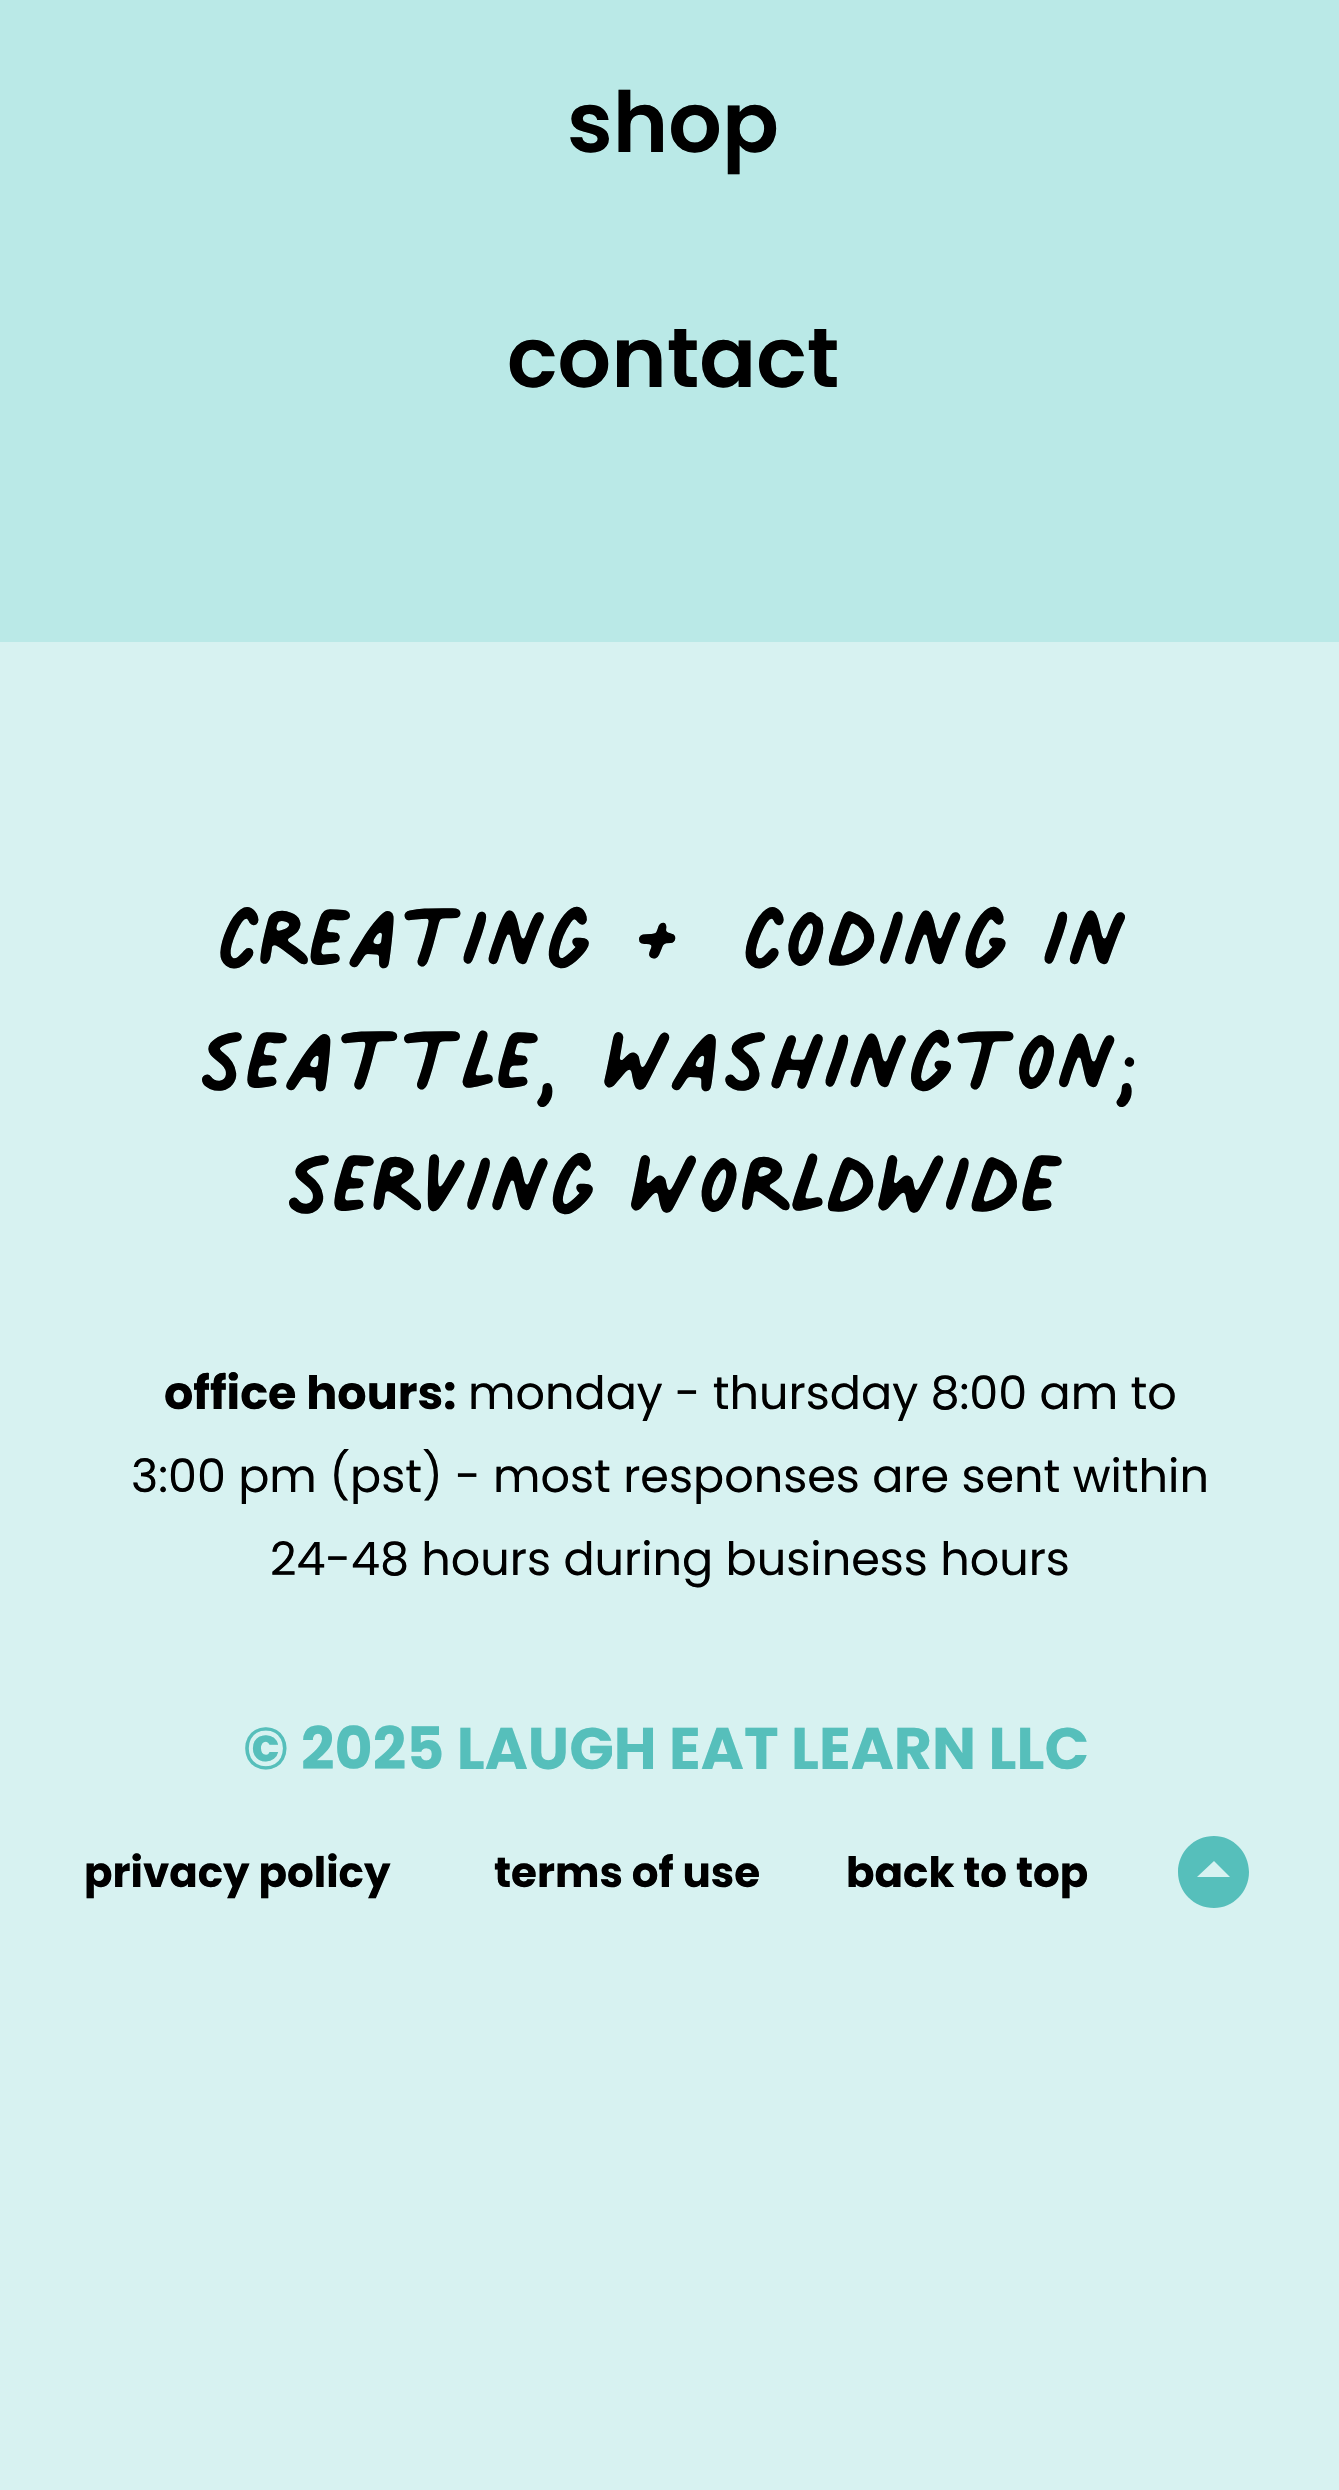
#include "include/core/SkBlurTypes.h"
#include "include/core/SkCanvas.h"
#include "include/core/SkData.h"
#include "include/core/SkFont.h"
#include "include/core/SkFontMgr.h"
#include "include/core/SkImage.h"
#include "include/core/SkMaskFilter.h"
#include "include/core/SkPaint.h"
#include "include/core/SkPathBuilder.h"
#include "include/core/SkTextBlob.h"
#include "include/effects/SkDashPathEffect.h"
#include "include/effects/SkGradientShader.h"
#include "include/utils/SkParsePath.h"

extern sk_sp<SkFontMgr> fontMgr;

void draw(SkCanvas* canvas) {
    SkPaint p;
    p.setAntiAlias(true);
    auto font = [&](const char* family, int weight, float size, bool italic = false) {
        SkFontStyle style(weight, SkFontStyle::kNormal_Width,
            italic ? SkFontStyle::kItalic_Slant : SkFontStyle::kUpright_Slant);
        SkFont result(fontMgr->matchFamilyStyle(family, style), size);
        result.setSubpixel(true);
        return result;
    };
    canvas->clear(0xFFD7F2F1);
    p.setColor(0xFFBAE9E7);
    canvas->drawRect(SkRect::MakeLTRB(0, 0, 1339, 642), p);
    auto font1 = font("Poppins", 600, 84);
    p.setColor(0xFF000000);
    canvas->drawString("shop", 567, 152, font1, p);
    canvas->drawString("contact", 507, 387, font1, p);
    auto font2 = font("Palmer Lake", 400, 176);
    {
        const struct { const char* s; float x, y; } items[] = {
            {"creating + coding in", 219, 969},
            {"seattle, washington;", 198, 1092},
            {"serving worldwide", 285, 1215},
        };
        for (auto [s, x, y] : items) {
            canvas->drawString(s, x, y, font2, p);
        }
    }
    auto font3 = font("Poppins", 700, 46.1f);
    canvas->drawString("office hours:", 164, 1409, font3, p);
    auto font4 = font("Poppins", 400, 46.1f);
    {
        const struct { const char* s; float x, y; } items[] = {
            {"monday - thursday 8:00 am to", 468, 1409},
            {"3:00 pm (pst) - most responses are sent within", 131, 1492},
            {"24-48 hours during business hours", 270, 1575},
        };
        for (auto [s, x, y] : items) {
            canvas->drawString(s, x, y, font4, p);
        }
    }
    auto font5 = font("Poppins", 700, 58.6f);
    p.setColor(0xFF56BFBB);
    canvas->drawString("© 2025 LAUGH EAT LEARN LLC", 243, 1769, font5, p);
    auto font6 = font("Poppins", 700, 42);
    p.setColor(0xFF000000);
    {
        const struct { const char* s; float x, y; } items[] = {
            {"privacy policy", 84, 1887},
            {"terms of use", 494, 1887},
            {"back to top", 846, 1887},
        };
        for (auto [s, x, y] : items) {
            canvas->drawString(s, x, y, font6, p);
        }
    }
    p.setColor(0xFF56BFBB);
    canvas->drawPath(SkPathBuilder().moveTo(1249, 1872).cubicTo(1249, 1852, 1233, 1836, 1214, 1836).cubicTo(1194, 1836, 1178, 1852, 1178, 1872).cubicTo(1178, 1892, 1194, 1908, 1214, 1908).cubicTo(1233, 1908, 1249, 1892, 1249, 1872).close().moveTo(1230, 1877).lineTo(1197, 1877).lineTo(1214, 1861).close().detach(), p);
}
